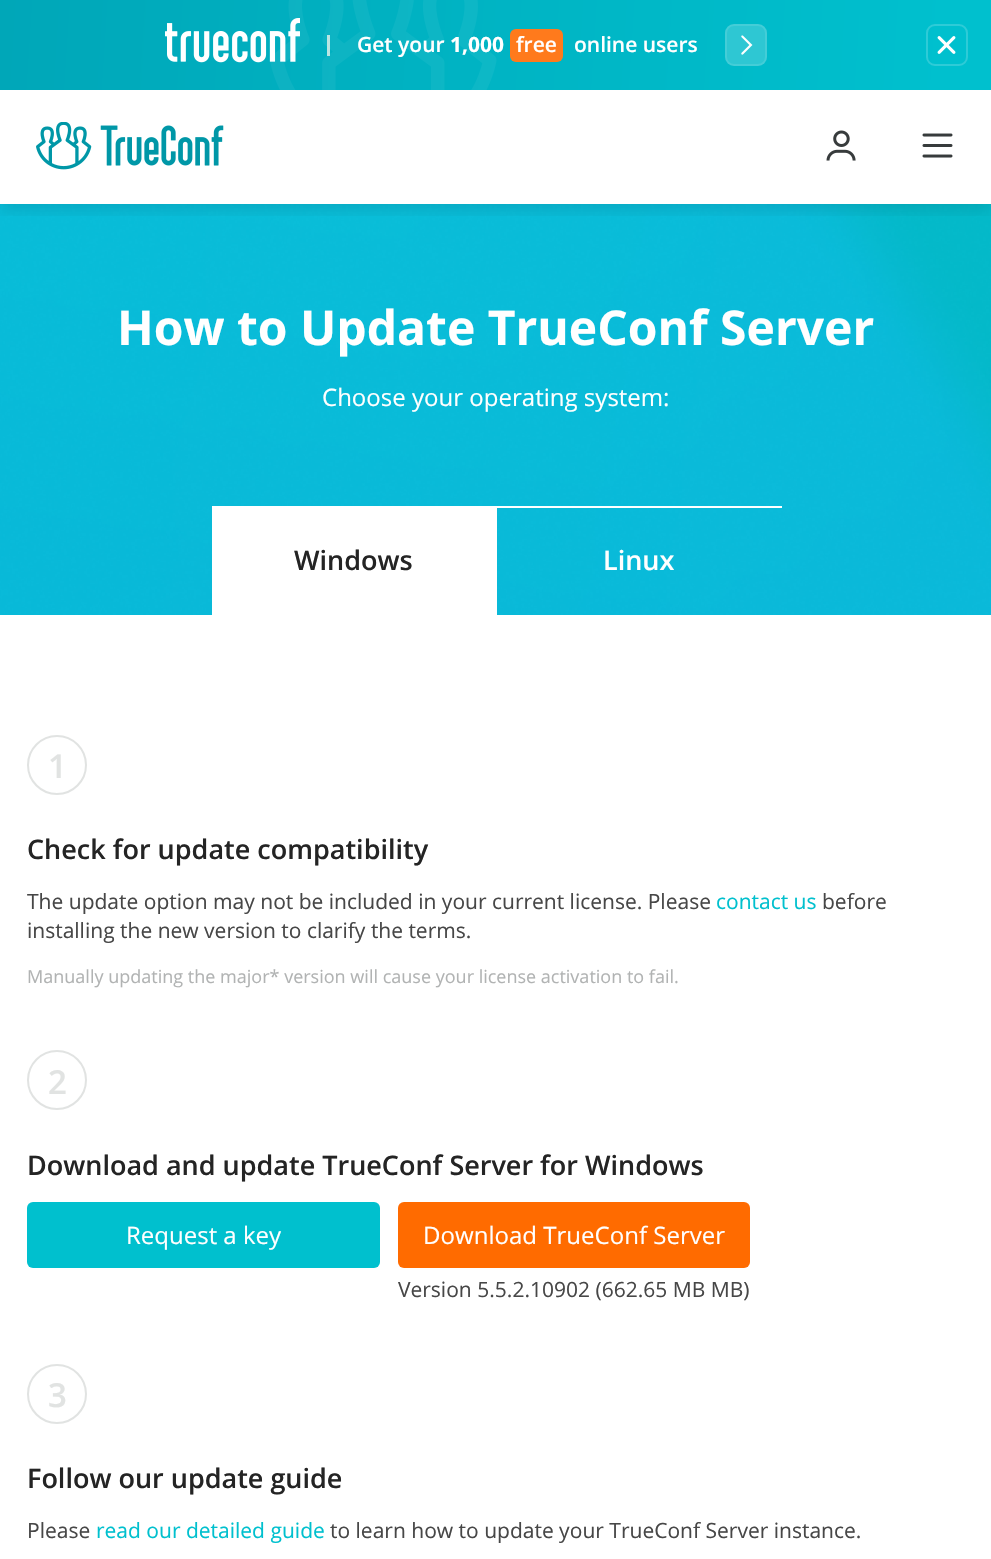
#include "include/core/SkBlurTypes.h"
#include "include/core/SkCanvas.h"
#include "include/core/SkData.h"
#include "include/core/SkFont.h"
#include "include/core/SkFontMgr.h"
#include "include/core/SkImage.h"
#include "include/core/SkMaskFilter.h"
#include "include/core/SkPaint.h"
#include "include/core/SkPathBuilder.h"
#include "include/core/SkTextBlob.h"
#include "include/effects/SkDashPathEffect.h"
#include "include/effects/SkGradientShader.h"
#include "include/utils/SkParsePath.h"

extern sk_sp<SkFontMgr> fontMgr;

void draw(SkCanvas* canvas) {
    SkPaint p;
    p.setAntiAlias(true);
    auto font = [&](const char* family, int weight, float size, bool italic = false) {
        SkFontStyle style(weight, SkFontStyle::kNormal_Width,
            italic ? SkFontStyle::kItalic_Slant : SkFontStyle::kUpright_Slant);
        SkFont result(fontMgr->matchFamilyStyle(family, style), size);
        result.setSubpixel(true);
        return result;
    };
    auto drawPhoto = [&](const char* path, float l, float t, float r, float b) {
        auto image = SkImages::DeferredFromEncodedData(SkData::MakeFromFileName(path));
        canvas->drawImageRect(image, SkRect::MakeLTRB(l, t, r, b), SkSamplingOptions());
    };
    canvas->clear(0xFFFFFFFF);
    drawPhoto("media/1.png", 0, 0, 991, 90);
    drawPhoto("media/2.png", 165, 18, 300, 63);
    p.setColor(0xFFBAE5E2);
    canvas->drawRect(SkRect::MakeLTRB(327, 35, 330, 56), p);
    auto font1 = font("Open Sans", 600, 21);
    p.setColor(0xFFFFFFFF);
    canvas->drawString("Get your", 357, 52, font1, p);
    auto font2 = font("Open Sans", 700, 21);
    canvas->drawString("1,000", 450, 52, font2, p);
    p.setColor(0xFFFF7A1C);
    canvas->drawRoundRect(SkRect::MakeLTRB(510, 29, 563, 62), 6, 6, p);
    p.setColor(0xFFFFFFFF);
    canvas->drawString("free", 516, 52, font1, p);
    canvas->drawString("online users", 574, 52, font1, p);
    p.setColor(0xFF2EC7D3);
    canvas->drawRoundRect(SkRect::MakeLTRB(725, 24, 767, 66), 9, 9, p);
    p.setStyle(SkPaint::kStroke_Style);
    p.setStrokeWidth(2);
    p.setColor(0x1AFFFFFF);
    canvas->drawRoundRect(SkRect::MakeLTRB(726, 25, 766, 65), 8, 8, p);
    drawPhoto("media/3.png", 741, 35, 753, 55);
    p.setColor(0xFF2ECBD7);
    canvas->drawRoundRect(SkRect::MakeLTRB(927, 25, 967, 65), 8, 8, p);
    drawPhoto("media/4.png", 937, 36, 956, 54);
    drawPhoto("media/8.png", 0, 204, 991, 615);
    canvas->save();
    canvas->clipRect(SkRect::MakeLTRB(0, 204, 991, 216));
    p.setStyle(SkPaint::kFill_Style);
    p.setColor(0x1A000000);
    p.setMaskFilter(SkMaskFilter::MakeBlur(kNormal_SkBlurStyle, 7.5f));
    canvas->drawRect(SkRect::MakeLTRB(0, 96, 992, 210), p);
    p.setMaskFilter(nullptr);
    canvas->restore();
    drawPhoto("media/5.png", 36, 122, 224, 170);
    drawPhoto("media/6.png", 826, 130, 856, 161);
    drawPhoto("media/7.png", 922, 133, 953, 158);
    auto font3 = font("Open Sans", 700, 48);
    p.setColor(0xFFFFFFFF);
    canvas->drawString("How to Update TrueConf Server", 117, 345, font3, p);
    auto font4 = font("Open Sans", 400, 24);
    canvas->drawString("Choose your operating system:", 322, 406, font4, p);
    canvas->drawRect(SkRect::MakeLTRB(212, 506, 782, 508), p);
    canvas->drawRect(SkRect::MakeLTRB(212, 508, 497, 615), p);
    auto font5 = font("Open Sans", 600, 27);
    p.setColor(0xFF242424);
    canvas->drawString("Windows", 294, 570, font5, p);
    p.setColor(0xFFFFFFFF);
    canvas->drawString("Linux", 603, 570, font5, p);
    p.setStyle(SkPaint::kStroke_Style);
    p.setColor(0xFFE1E3E2);
    canvas->drawCircle(57, 765, 29, p);
    auto font6 = font("Open Sans", 600, 33);
    p.setStyle(SkPaint::kFill_Style);
    canvas->drawString("1", 48, 778, font6, p);
    p.setColor(0xFF242424);
    canvas->drawString("Check for update compatibility", 27, 859, font5, p);
    auto font7 = font("Open Sans", 400, 21);
    p.setColor(0xFF474747);
    canvas->drawString("The update option may not be included in your current license. Please", 27, 909, font7, p);
    p.setColor(0xFF00C0CE);
    canvas->drawString("contact us", 716, 909, font7, p);
    p.setColor(0xFF474747);
    canvas->drawString("before", 822, 909, font7, p);
    canvas->drawString("installing the new version to clarify the terms.", 27, 938, font7, p);
    auto font8 = font("Open Sans", 400, 18);
    p.setColor(0xFFB1B3B3);
    canvas->drawString("Manually updating the major* version will cause your license activation to fail.", 27, 983, font8, p);
    p.setStyle(SkPaint::kStroke_Style);
    p.setColor(0xFFE1E3E2);
    canvas->drawCircle(57, 1080, 29, p);
    p.setStyle(SkPaint::kFill_Style);
    canvas->drawString("2", 48, 1094, font6, p);
    p.setColor(0xFF242424);
    canvas->drawString("Download and update TrueConf Server for Windows", 27, 1175, font5, p);
    p.setColor(0xFF00C0CE);
    canvas->drawRoundRect(SkRect::MakeLTRB(27, 1202, 380, 1268), 6, 6, p);
    p.setColor(0xFFFFFFFF);
    canvas->drawString("Request a key", 126, 1244, font4, p);
    p.setColor(0xFFFF6B00);
    canvas->drawRoundRect(SkRect::MakeLTRB(398, 1202, 750, 1268), 6, 6, p);
    p.setColor(0xFFFFFFFF);
    canvas->drawString("Download TrueConf Server", 423, 1244, font4, p);
    p.setColor(0xFF474747);
    canvas->drawString("Version 5.5.2.10902 (662.65 MB MB)", 398, 1297, font7, p);
    p.setStyle(SkPaint::kStroke_Style);
    p.setColor(0xFFE1E3E2);
    canvas->drawCircle(57, 1394, 29, p);
    p.setStyle(SkPaint::kFill_Style);
    canvas->drawString("3", 48, 1407, font6, p);
    p.setColor(0xFF242424);
    canvas->drawString("Follow our update guide", 27, 1488, font5, p);
    p.setColor(0xFF474747);
    canvas->drawString("Please", 27, 1538, font7, p);
    p.setColor(0xFF00C0CE);
    canvas->drawString("read our detailed guide", 96, 1538, font7, p);
    p.setColor(0xFF474747);
    canvas->drawString("to learn how to update your TrueConf Server instance.", 330, 1538, font7, p);
}
